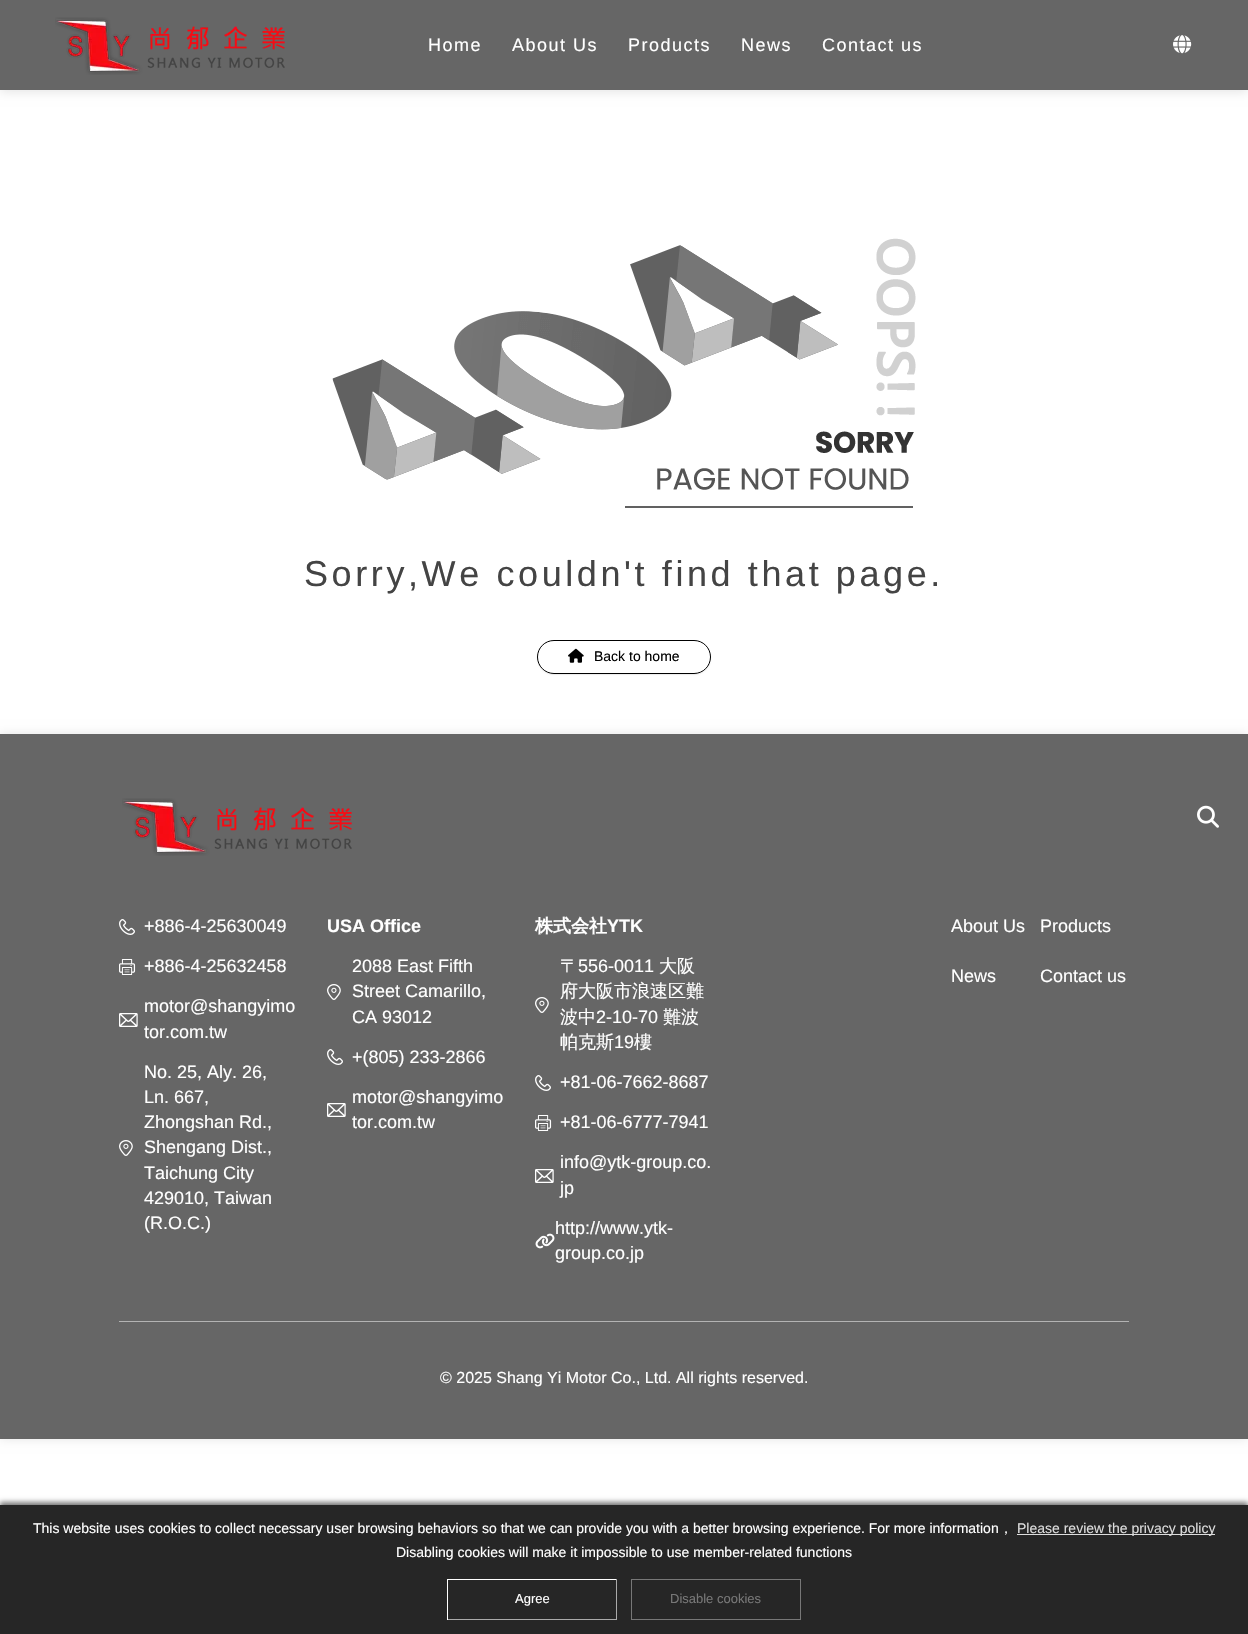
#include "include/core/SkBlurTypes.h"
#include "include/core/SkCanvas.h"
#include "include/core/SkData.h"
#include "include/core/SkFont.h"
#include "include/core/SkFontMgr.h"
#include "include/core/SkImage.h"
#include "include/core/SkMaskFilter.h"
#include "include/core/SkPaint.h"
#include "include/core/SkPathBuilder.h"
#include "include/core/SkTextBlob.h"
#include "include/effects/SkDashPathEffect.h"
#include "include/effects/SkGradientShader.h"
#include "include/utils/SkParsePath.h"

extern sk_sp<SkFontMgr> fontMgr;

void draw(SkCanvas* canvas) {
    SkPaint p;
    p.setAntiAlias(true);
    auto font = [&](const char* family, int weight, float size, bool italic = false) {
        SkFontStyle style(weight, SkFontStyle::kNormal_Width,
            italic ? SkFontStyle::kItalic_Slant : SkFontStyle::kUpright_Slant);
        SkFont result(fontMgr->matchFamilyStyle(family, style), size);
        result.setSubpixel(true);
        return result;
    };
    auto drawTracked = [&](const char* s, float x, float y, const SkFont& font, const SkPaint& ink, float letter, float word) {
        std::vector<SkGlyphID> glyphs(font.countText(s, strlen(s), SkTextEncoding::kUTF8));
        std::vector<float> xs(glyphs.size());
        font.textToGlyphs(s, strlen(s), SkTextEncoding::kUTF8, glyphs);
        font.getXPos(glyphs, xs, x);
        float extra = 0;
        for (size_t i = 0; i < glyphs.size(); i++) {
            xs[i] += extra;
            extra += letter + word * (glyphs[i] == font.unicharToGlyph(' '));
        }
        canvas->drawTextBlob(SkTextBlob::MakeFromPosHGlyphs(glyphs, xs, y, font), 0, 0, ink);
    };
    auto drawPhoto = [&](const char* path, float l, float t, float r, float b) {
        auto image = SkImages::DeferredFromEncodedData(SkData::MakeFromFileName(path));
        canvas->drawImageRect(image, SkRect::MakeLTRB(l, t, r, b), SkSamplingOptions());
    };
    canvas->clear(0xFFFFFFFF);
    p.setColor(0x1A000000);
    p.setMaskFilter(SkMaskFilter::MakeBlur(kNormal_SkBlurStyle, 5));
    canvas->drawRect(SkRect::MakeLTRB(0, 2, 1248, 92), p);
    p.setMaskFilter(nullptr);
    p.setColor(0xFF666666);
    canvas->drawRect(SkRect::MakeLTRB(0, 0, 1248, 90), p);
    drawPhoto("media/1.png", 55, 17, 285, 75);
    auto font1 = font("Liberation Sans", 400, 18);
    p.setColor(0xFFFFFFFF);
    {
        const struct { const char* s; float x, y; } items[] = {
            {"Home", 428, 51},
            {"About Us", 512, 51},
            {"Products", 628, 51},
            {"News", 741, 51},
            {"Contact us", 822, 51},
        };
        for (auto [s, x, y] : items) {
            drawTracked(s, x, y, font1, p, 1.5f, 0);
        }
    }
    drawPhoto("media/2.png", 1173, 35, 1192, 54);
    drawPhoto("media/3.png", 332, 238, 916, 508);
    auto font2 = font("Liberation Sans", 400, 36);
    p.setColor(0xFF444444);
    drawTracked("Sorry,We couldn't find that page.", 304, 586, font2, p, 3.6f, 0);
    canvas->save();
    canvas->clipPath(SkPathBuilder(SkPathFillType::kEvenOdd).moveTo(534, 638).lineTo(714, 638).lineTo(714, 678).lineTo(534, 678).close().moveTo(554, 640).lineTo(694, 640).cubicTo(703.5f, 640, 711, 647.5f, 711, 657).cubicTo(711, 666.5f, 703.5f, 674, 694, 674).lineTo(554, 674).cubicTo(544.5f, 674, 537, 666.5f, 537, 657).cubicTo(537, 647.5f, 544.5f, 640, 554, 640).close().detach(), true);
    p.setColor(0x14000000);
    p.setMaskFilter(SkMaskFilter::MakeBlur(kNormal_SkBlurStyle, 0.5f));
    canvas->drawRoundRect(SkRect::MakeLTRB(537, 641, 711, 675), 17, 17, p);
    p.setMaskFilter(nullptr);
    canvas->restore();
    p.setStyle(SkPaint::kStroke_Style);
    p.setStrokeWidth(1);
    p.setColor(0xFF000000);
    canvas->drawRoundRect(SkRect::MakeLTRB(537.5f, 640.5f, 710.5f, 673.5f), 16.5f, 16.5f, p);
    drawPhoto("media/4.png", 568, 648, 584, 663);
    auto font3 = font("Liberation Sans", 400, 14);
    p.setStyle(SkPaint::kFill_Style);
    canvas->drawString("Back to home", 594, 661, font3, p);
    p.setColor(0x1A000000);
    p.setMaskFilter(SkMaskFilter::MakeBlur(kNormal_SkBlurStyle, 5));
    canvas->drawRect(SkRect::MakeLTRB(0, 734, 1248, 1439), p);
    p.setMaskFilter(nullptr);
    p.setColor(0xFF666666);
    canvas->drawRect(SkRect::MakeLTRB(0, 734, 1248, 1439), p);
    drawPhoto("media/5.png", 1197, 805, 1219, 828);
    drawPhoto("media/1.png", 122, 798, 352, 856);
    drawPhoto("media/6.png", 119, 919, 135, 935);
    p.setColor(0xFFFFFFFF);
    canvas->drawString("+886-4-25630049", 144, 932, font1, p);
    drawPhoto("media/7.png", 119, 959, 136, 975);
    canvas->drawString("+886-4-25632458", 144, 972, font1, p);
    drawPhoto("media/8.png", 119, 1013, 138, 1027);
    canvas->drawString("motor@shangyimo", 144, 1012, font1, p);
    canvas->drawString("tor.com.tw", 144, 1038, font1, p);
    drawPhoto("media/9.png", 119, 1140, 133, 1156);
    {
        const struct { const char* s; float x, y; } items[] = {
            {"No. 25, Aly. 26,", 144, 1078},
            {"Ln. 667,", 144, 1103},
            {"Zhongshan Rd.,", 144, 1128},
            {"Shengang Dist.,", 144, 1153},
            {"Taichung City", 144, 1179},
            {"429010, Taiwan", 144, 1204},
            {"(R.O.C.)", 144, 1229},
        };
        for (auto [s, x, y] : items) {
            canvas->drawString(s, x, y, font1, p);
        }
    }
    auto font4 = font("Liberation Sans", 700, 18);
    canvas->drawString("USA Office", 327, 932, font4, p);
    drawPhoto("media/9.png", 327, 984, 341, 1000);
    {
        const struct { const char* s; float x, y; } items[] = {
            {"2088 East Fifth", 352, 972},
            {"Street Camarillo,", 352, 997},
            {"CA 93012", 352, 1023},
        };
        for (auto [s, x, y] : items) {
            canvas->drawString(s, x, y, font1, p);
        }
    }
    drawPhoto("media/6.png", 327, 1049, 343, 1065);
    canvas->drawString("+(805) 233-2866", 352, 1063, font1, p);
    drawPhoto("media/8.png", 327, 1103, 346, 1117);
    canvas->drawString("motor@shangyimo", 352, 1103, font1, p);
    canvas->drawString("tor.com.tw", 352, 1128, font1, p);
    auto font5 = font("WenQuanYi Zen Hei", 700, 18);
    canvas->drawString("株式会社", 535, 932, font5, p);
    canvas->drawString("YTK", 607, 932, font4, p);
    drawPhoto("media/9.png", 535, 997, 549, 1013);
    auto font6 = font("WenQuanYi Zen Hei", 500, 18);
    canvas->drawString("〒", 560, 972, font6, p);
    canvas->drawString("556-0011", 578, 972, font1, p);
    {
        const struct { const char* s; float x, y; } items[] = {
            {"大阪", 659, 972},
            {"府大阪市浪速区難", 560, 997},
            {"波中", 560, 1023},
        };
        for (auto [s, x, y] : items) {
            canvas->drawString(s, x, y, font6, p);
        }
    }
    canvas->drawString("2-10-70", 596, 1023, font1, p);
    canvas->drawString("難波", 663, 1023, font6, p);
    canvas->drawString("帕克斯", 560, 1048, font6, p);
    canvas->drawString("19", 614, 1048, font1, p);
    canvas->drawString("樓", 634, 1048, font6, p);
    drawPhoto("media/6.png", 535, 1075, 551, 1091);
    canvas->drawString("+81-06-7662-8687", 560, 1088, font1, p);
    drawPhoto("media/7.png", 535, 1115, 552, 1131);
    canvas->drawString("+81-06-6777-7941", 560, 1128, font1, p);
    drawPhoto("media/8.png", 535, 1169, 554, 1183);
    canvas->drawString("info@ytk-group.co.", 560, 1168, font1, p);
    canvas->drawString("jp", 560, 1194, font1, p);
    drawPhoto("media/10.png", 535, 1233, 555, 1249);
    {
        const struct { const char* s; float x, y; } items[] = {
            {"http://www.ytk-", 555, 1234},
            {"group.co.jp", 555, 1259},
            {"About Us", 951, 932},
            {"Products", 1040, 932},
            {"News", 951, 982},
            {"Contact us", 1040, 982},
        };
        for (auto [s, x, y] : items) {
            canvas->drawString(s, x, y, font1, p);
        }
    }
    p.setColor(0xFFB3B3B3);
    canvas->drawRect(SkRect::MakeLTRB(119, 1321, 1129, 1322), p);
    auto font7 = font("Liberation Sans", 400, 16);
    p.setColor(0xFFFFFFFF);
    canvas->drawString("© 2025 Shang Yi Motor Co., Ltd. All rights reserved.", 440, 1383, font7, p);
    p.setColor(0x80000000);
    p.setMaskFilter(SkMaskFilter::MakeBlur(kNormal_SkBlurStyle, 2.5f));
    canvas->drawRect(SkRect::MakeLTRB(0, 1508, 1248, 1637), p);
    p.setMaskFilter(nullptr);
    p.setMaskFilter(SkMaskFilter::MakeBlur(kNormal_SkBlurStyle, 2.5f));
    canvas->drawRect(SkRect::MakeLTRB(0, 1502, 1248, 1631), p);
    p.setMaskFilter(nullptr);
    p.setColor(0xFF262626);
    canvas->drawRect(SkRect::MakeLTRB(0, 1505, 1248, 1634), p);
    p.setColor(0xFFFFFFFF);
    canvas->drawString("This website uses cookies to collect necessary user browsing behaviors so that we can provide you with a better browsing experience. For more information", 33, 1533, font3, p);
    auto font8 = font("WenQuanYi Zen Hei", 500, 14);
    canvas->drawString("，", 999, 1533, font8, p);
    p.setColor(0xFFDDDDDD);
    canvas->drawRect(SkRect::MakeLTRB(1017, 1534, 1215, 1535), p);
    canvas->drawString("Please review the privacy policy", 1017, 1533, font3, p);
    p.setColor(0xFFFFFFFF);
    canvas->drawString("Disabling cookies will make it impossible to use member-related functions", 396, 1557, font3, p);
    {
        const struct { float l, t, r, b; SkColor color; } items[] = {
            {447, 1579, 617, 1580, 0xFFFFFFFF},
            {616, 1579, 617, 1620, 0xFFAAAAAA},
            {447, 1619, 617, 1620, 0xFFAAAAAA},
            {447, 1579, 448, 1620, 0xFFFFFFFF},
        };
        for (auto [l, t, r, b, color] : items) {
            p.setColor(color);
            canvas->drawRect(SkRect::MakeLTRB(l, t, r, b), p);
        }
    }
    auto font9 = font("Liberation Sans", 400, 13);
    canvas->drawString("Agree", 515, 1603, font9, p);
    p.setStyle(SkPaint::kStroke_Style);
    p.setColor(0xFF777777);
    canvas->drawRect(SkRect::MakeLTRB(631.5f, 1579.5f, 800.5f, 1619.5f), p);
    p.setStyle(SkPaint::kFill_Style);
    canvas->drawString("Disable cookies", 670, 1603, font9, p);
}
